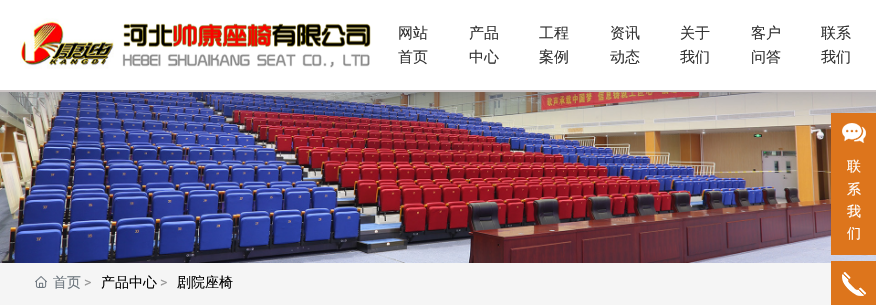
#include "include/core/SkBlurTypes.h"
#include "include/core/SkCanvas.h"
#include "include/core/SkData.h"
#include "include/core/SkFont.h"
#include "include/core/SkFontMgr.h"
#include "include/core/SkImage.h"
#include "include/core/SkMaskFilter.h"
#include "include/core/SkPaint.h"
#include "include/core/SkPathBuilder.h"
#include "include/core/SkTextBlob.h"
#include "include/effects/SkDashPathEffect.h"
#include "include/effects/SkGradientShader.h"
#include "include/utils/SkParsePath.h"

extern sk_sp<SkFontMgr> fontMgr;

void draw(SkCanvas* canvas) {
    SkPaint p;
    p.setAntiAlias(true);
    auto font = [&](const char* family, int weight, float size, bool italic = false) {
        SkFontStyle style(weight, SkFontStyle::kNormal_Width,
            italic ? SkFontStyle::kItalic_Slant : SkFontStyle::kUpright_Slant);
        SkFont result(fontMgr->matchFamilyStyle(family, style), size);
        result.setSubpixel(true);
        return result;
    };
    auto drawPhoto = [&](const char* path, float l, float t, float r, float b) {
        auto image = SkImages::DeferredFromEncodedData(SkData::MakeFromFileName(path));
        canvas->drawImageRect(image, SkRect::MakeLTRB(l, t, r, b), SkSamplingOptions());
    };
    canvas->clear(0xFFFFFFFF);
    p.setColor(0xFFCCC6C6);
    canvas->drawRect(SkRect::MakeLTRB(0, 90, 876, 92), p);
    drawPhoto("media/1.png", 20, 18, 371, 69);
    auto font1 = font("WenQuanYi Zen Hei", 500, 15);
    p.setColor(0xFF333333);
    {
        const struct { const char* s; float x, y; } items[] = {
            {"网站", 398, 38},
            {"首页", 398, 62},
            {"产品", 469, 38},
            {"中心", 469, 62},
            {"工程", 539, 38},
            {"案例", 539, 62},
            {"资讯", 610, 38},
            {"动态", 610, 62},
            {"关于", 680, 38},
            {"我们", 680, 62},
            {"客户", 751, 38},
            {"问答", 751, 62},
            {"联系", 821, 38},
            {"我们", 821, 62},
        };
        for (auto [s, x, y] : items) {
            canvas->drawString(s, x, y, font1, p);
        }
    }
    drawPhoto("media/2.png", 0, 92, 876, 263);
    p.setColor(0xFFDD751C);
    canvas->drawRect(SkRect::MakeLTRB(831, 113, 876, 255), p);
    drawPhoto("media/3.png", 842, 123, 866, 143);
    auto font2 = font("WenQuanYi Zen Hei", 500, 14);
    p.setColor(0xFFFFFFFF);
    {
        const struct { const char* s; float x, y; } items[] = {
            {"联", 847, 171},
            {"系", 847, 194},
            {"我", 847, 216},
            {"们", 847, 238},
        };
        for (auto [s, x, y] : items) {
            canvas->drawString(s, x, y, font2, p);
        }
    }
    p.setColor(0xFFDD751C);
    canvas->drawRect(SkRect::MakeLTRB(831, 261, 876, 305), p);
    drawPhoto("media/4.png", 842, 272, 866, 296);
    p.setColor(0xFFF5F5F5);
    canvas->drawRect(SkRect::MakeLTRB(0, 263, 831, 305), p);
    drawPhoto("media/5.png", 35, 276, 47, 288);
    p.setColor(0xFF6C757D);
    canvas->drawString("首页", 53, 287, font2, p);
    auto font3 = font("Roboto", 400, 14);
    p.setColor(0xFF999999);
    canvas->drawString(">", 84, 287, font3, p);
    p.setColor(0xFF000000);
    canvas->drawString("产品中心", 101, 287, font2, p);
    p.setColor(0xFF999999);
    canvas->drawString(">", 160, 287, font3, p);
    p.setColor(0xFF000000);
    canvas->drawString("剧院座椅", 177, 287, font2, p);
}
